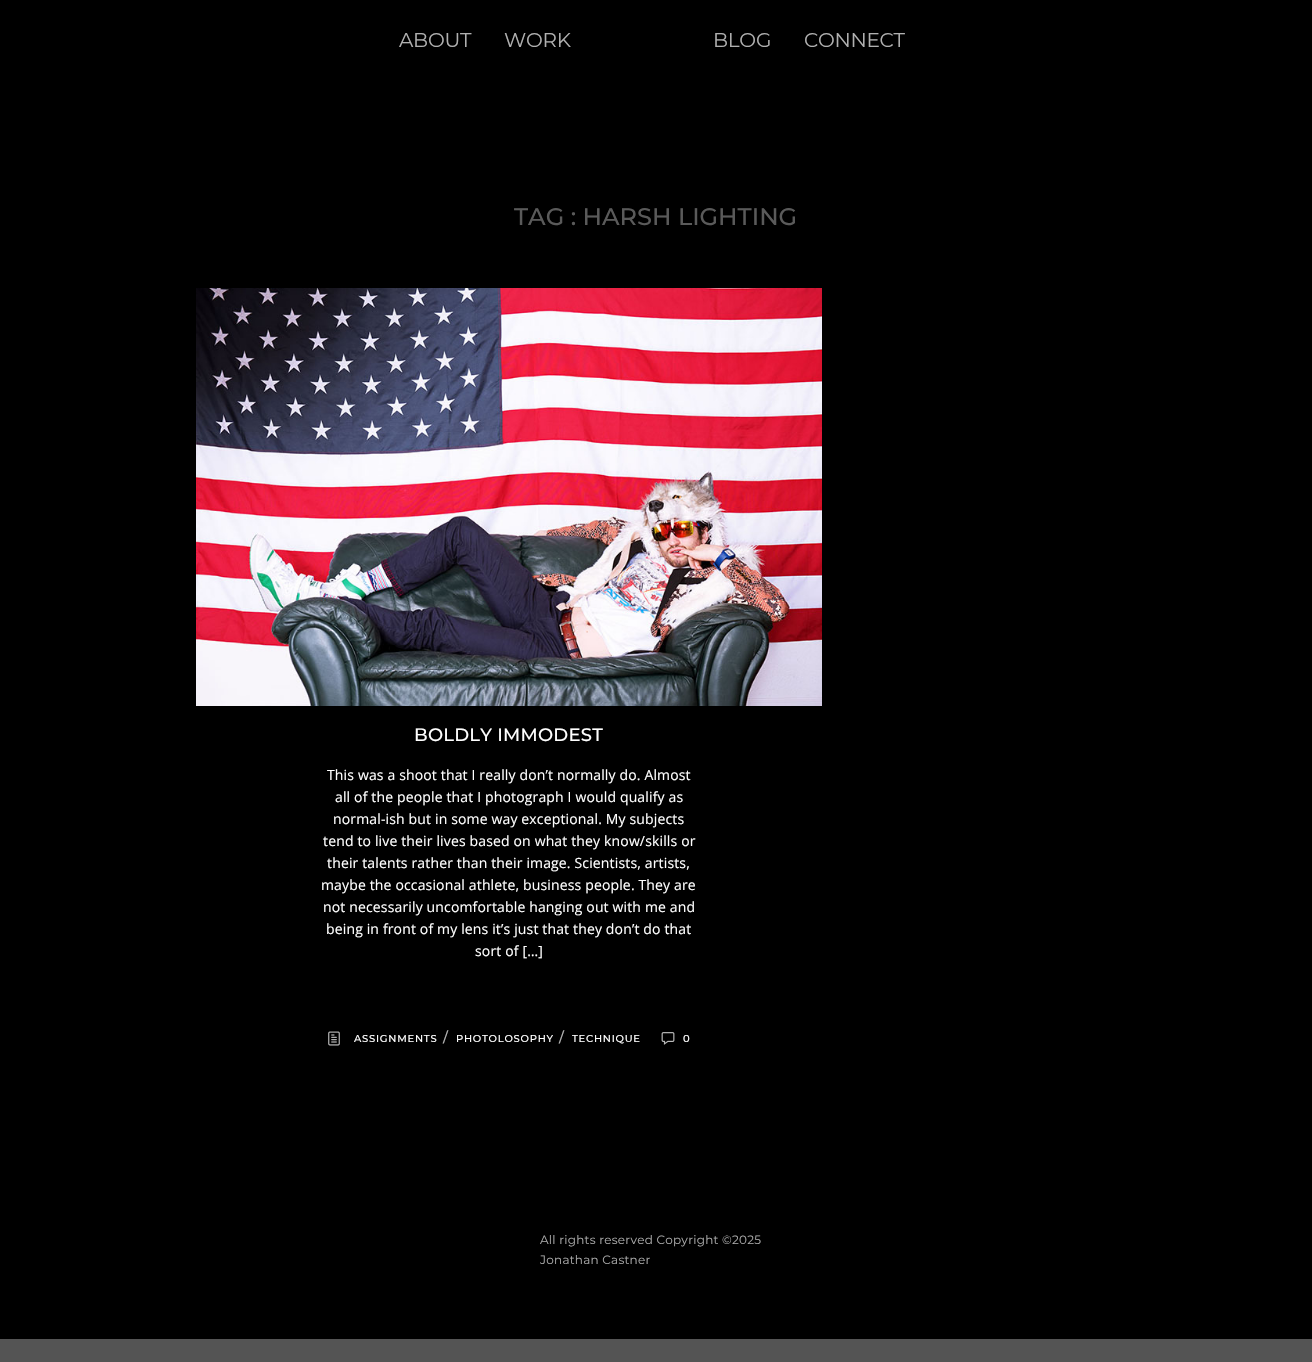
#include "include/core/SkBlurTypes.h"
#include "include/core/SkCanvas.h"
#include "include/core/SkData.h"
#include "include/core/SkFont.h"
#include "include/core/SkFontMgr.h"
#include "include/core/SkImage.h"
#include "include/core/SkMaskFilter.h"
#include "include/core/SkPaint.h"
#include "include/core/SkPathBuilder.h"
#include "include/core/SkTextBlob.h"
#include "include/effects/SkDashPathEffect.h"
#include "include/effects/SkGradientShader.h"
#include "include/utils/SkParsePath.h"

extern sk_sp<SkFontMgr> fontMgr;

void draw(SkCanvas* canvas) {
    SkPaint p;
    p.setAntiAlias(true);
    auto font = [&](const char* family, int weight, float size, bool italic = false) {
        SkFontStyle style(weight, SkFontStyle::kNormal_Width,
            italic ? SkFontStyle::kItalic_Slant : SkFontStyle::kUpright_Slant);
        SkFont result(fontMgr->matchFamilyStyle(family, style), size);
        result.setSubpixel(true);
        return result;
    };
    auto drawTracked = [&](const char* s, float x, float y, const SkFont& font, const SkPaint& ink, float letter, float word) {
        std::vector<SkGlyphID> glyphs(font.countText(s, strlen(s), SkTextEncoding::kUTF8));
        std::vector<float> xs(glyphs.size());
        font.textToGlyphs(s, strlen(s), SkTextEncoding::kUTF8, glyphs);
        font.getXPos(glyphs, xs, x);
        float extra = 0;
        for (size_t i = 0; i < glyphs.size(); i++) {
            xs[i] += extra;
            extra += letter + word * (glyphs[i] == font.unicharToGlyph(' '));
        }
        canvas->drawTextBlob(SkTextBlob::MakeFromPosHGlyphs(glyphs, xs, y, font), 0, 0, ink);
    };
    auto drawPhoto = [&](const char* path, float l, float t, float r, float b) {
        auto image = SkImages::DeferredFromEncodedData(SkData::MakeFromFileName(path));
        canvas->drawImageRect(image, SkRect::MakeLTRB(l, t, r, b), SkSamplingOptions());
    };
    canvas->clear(0xFF000000);
    auto font1 = font("Montserrat", 400, 20);
    p.setColor(0xFFB0B0B0);
    {
        const struct { const char* s; float x, y; } items[] = {
            {"ABOUT", 399, 47},
            {"WORK", 504, 47},
            {"BLOG", 713, 47},
            {"CONNECT", 804, 47},
        };
        for (auto [s, x, y] : items) {
            drawTracked(s, x, y, font1, p, -0.25f, 0);
        }
    }
    auto font2 = font("Montserrat", 500, 24);
    p.setColor(0xFF5A5A5A);
    canvas->drawString("TAG : HARSH LIGHTING", 514, 225, font2, p);
    drawPhoto("media/1.png", 196, 288, 822, 706);
    auto font3 = font("Montserrat", 500, 18);
    p.setColor(0xFFFFFFFF);
    drawTracked("BOLDLY IMMODEST", 414, 741, font3, p, 0.25f, 0);
    auto font4 = font("Open Sans", 400, 14);
    {
        const struct { const char* s; float x, y; } items[] = {
            {"This was a shoot that I really don’t normally do. Almost", 327, 780},
            {"all of the people that I photograph I would qualify as", 335, 802},
            {"normal-ish but in some way exceptional. My subjects", 333, 824},
            {"tend to live their lives based on what they know/skills or", 323, 846},
            {"their talents rather than their image. Scientists, artists,", 327, 868},
            {"maybe the occasional athlete, business people. They are", 321, 890},
            {"not necessarily uncomfortable hanging out with me and", 323, 912},
            {"being in front of my lens it’s just that they don’t do that", 326, 934},
            {"sort of […]", 475, 956},
        };
        for (auto [s, x, y] : items) {
            drawTracked(s, x, y, font4, p, 0.15f, 0);
        }
    }
    drawPhoto("media/2.png", 328, 1031, 340, 1046);
    auto font5 = font("Montserrat", 500, 10);
    drawTracked("ASSIGNMENTS", 354, 1042, font5, p, 0.75f, 0);
    auto font6 = font("Montserrat", 500, 14);
    p.setColor(0xFFB0B0B0);
    drawTracked("/", 443, 1042, font6, p, 2, 0);
    p.setColor(0xFFFFFFFF);
    drawTracked("PHOTOLOSOPHY", 456, 1042, font5, p, 0.75f, 0);
    p.setColor(0xFFB0B0B0);
    drawTracked("/", 559, 1042, font6, p, 2, 0);
    p.setColor(0xFFFFFFFF);
    drawTracked("TECHNIQUE", 572, 1042, font5, p, 0.75f, 0);
    drawPhoto("media/3.png", 661, 1032, 675, 1045);
    drawTracked("0", 683, 1042, font5, p, 0.75f, 0);
    auto font7 = font("Montserrat", 400, 12);
    p.setColor(0xFFAAAAAA);
    drawTracked("All rights reserved Copyright ©2025", 540, 1244, font7, p, 0.25f, 0);
    drawTracked("Jonathan Castner", 540, 1264, font7, p, 0.25f, 0);
    p.setColor(0xFF545454);
    canvas->drawRect(SkRect::MakeLTRB(0, 1339, 1312, 1362), p);
}
